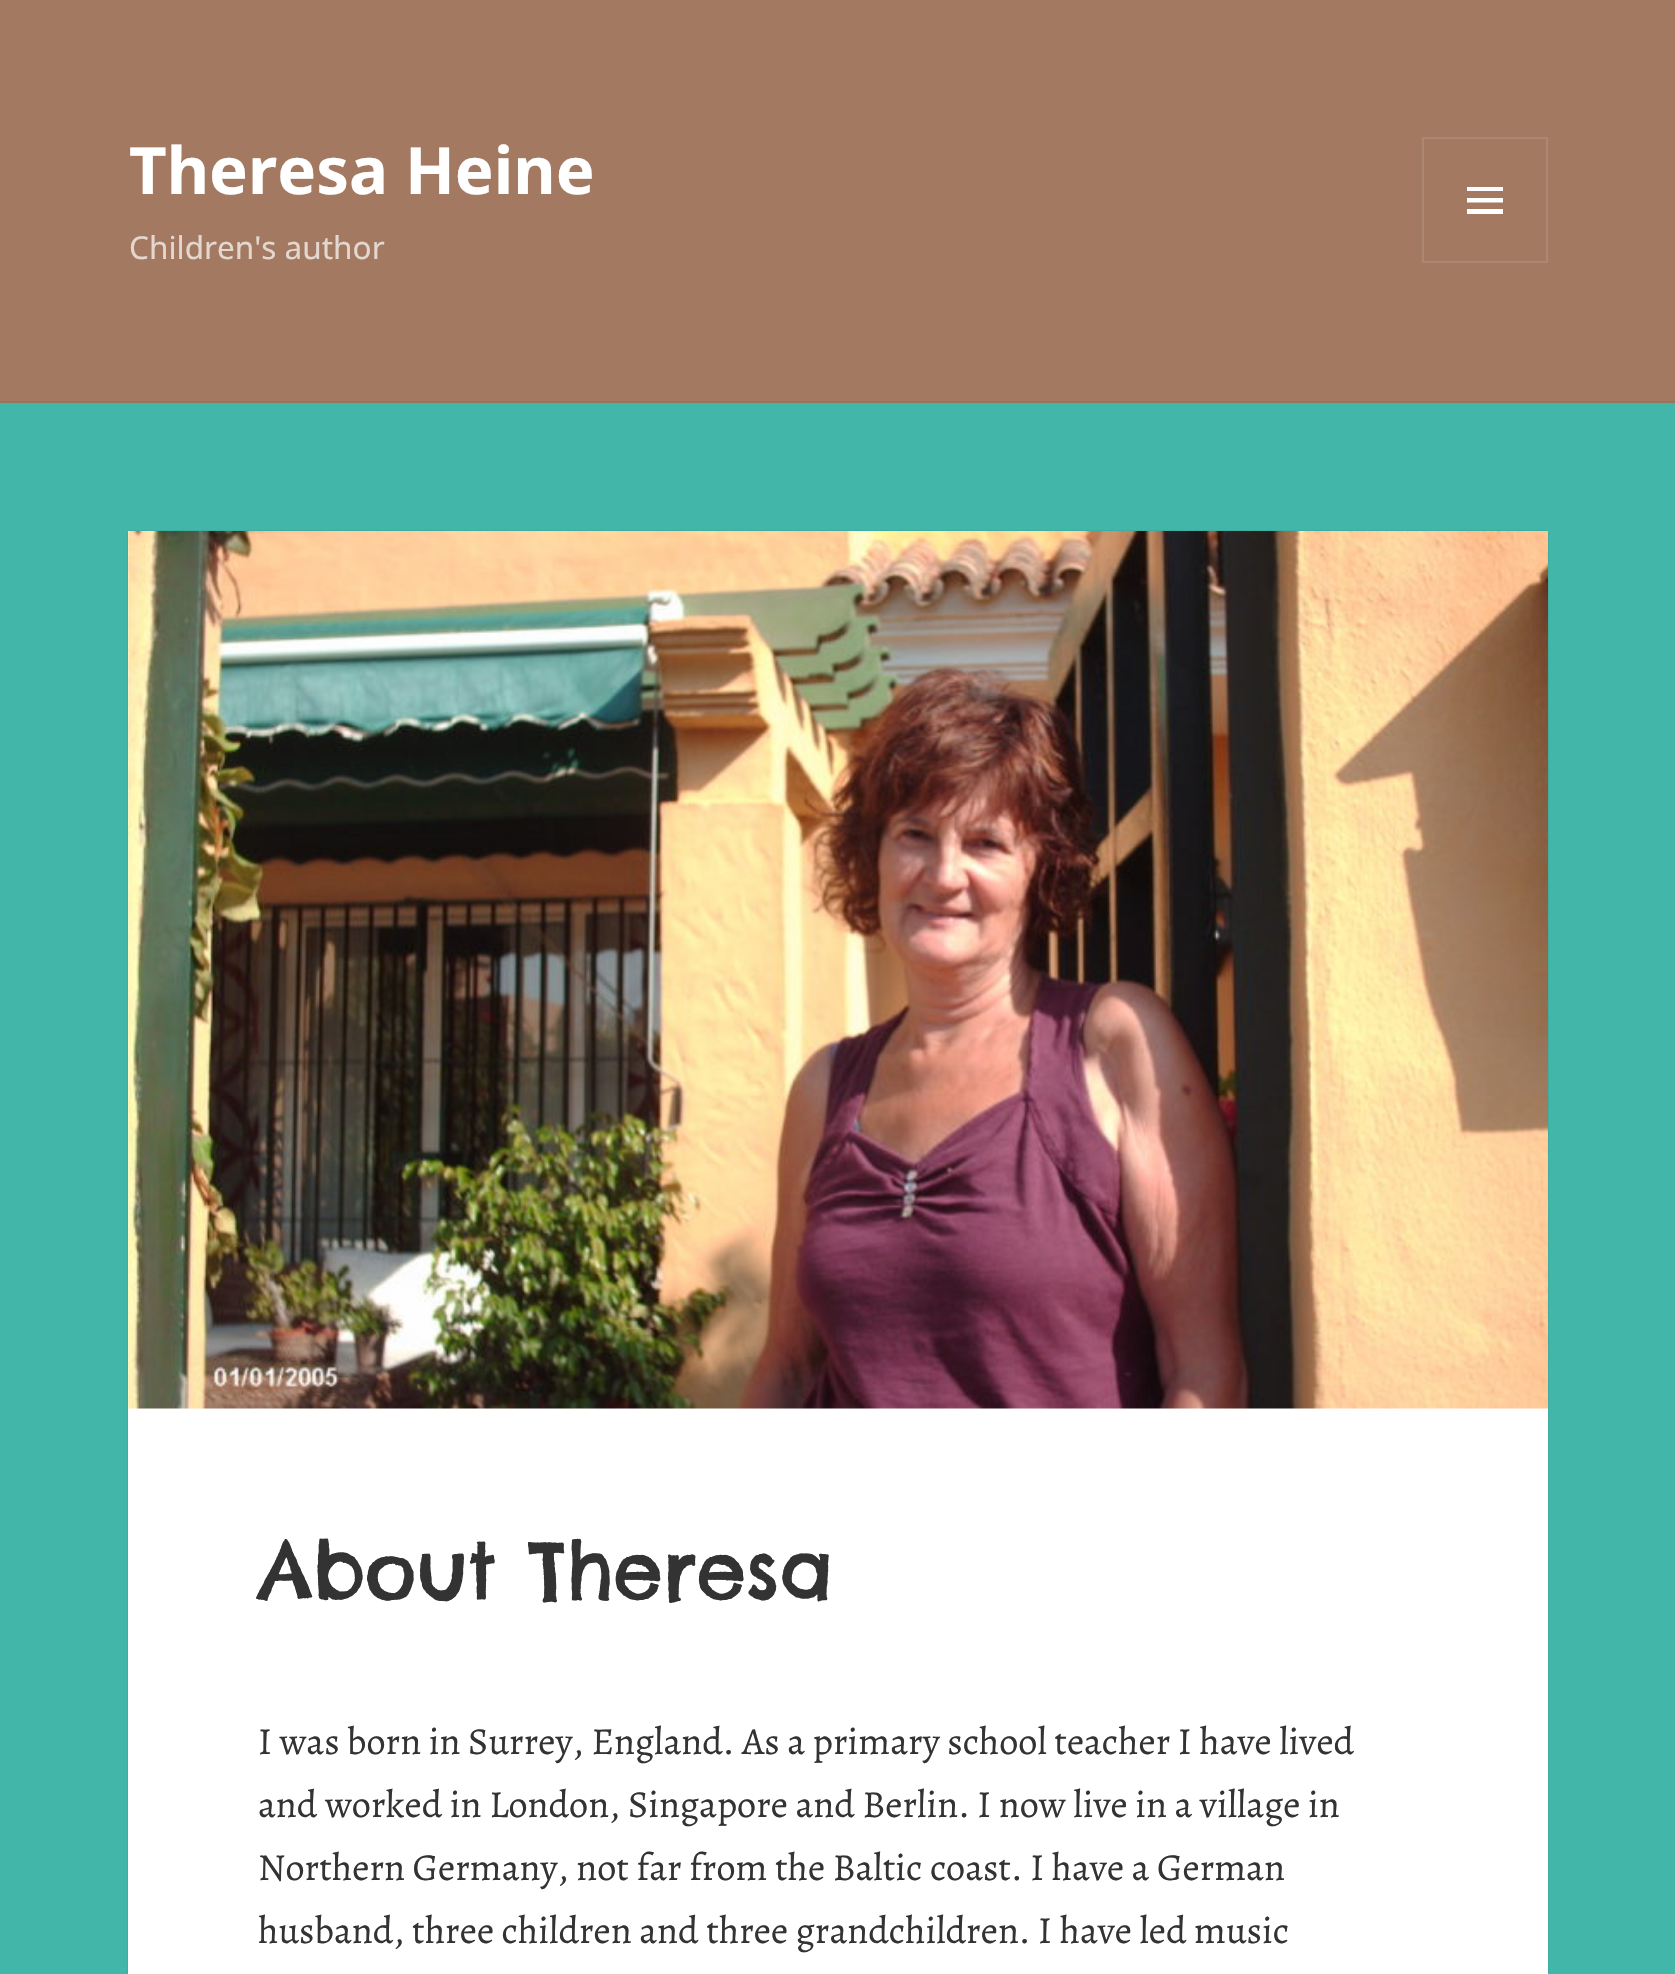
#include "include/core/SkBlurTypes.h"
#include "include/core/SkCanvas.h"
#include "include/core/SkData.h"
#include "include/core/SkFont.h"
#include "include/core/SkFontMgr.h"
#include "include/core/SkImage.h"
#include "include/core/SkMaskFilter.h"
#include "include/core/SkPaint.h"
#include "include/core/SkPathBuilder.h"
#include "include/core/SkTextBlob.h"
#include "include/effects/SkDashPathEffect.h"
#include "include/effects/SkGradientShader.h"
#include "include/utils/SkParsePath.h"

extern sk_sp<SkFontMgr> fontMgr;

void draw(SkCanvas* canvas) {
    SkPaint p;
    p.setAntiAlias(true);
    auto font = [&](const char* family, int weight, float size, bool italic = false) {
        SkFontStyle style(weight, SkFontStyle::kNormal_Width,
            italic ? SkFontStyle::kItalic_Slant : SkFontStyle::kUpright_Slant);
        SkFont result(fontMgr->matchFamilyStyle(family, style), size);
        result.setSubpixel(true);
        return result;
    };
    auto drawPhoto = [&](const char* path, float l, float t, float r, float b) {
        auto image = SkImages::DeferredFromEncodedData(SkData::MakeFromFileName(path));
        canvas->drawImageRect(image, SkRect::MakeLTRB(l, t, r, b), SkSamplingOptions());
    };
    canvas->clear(0xFF42B7A9);
    p.setColor(0xFFA37A61);
    canvas->drawRect(SkRect::MakeLTRB(0, 0, 1675, 401), p);
    p.setColor(0xFF98735C);
    canvas->drawRect(SkRect::MakeLTRB(0, 401, 1675, 403), p);
    auto font1 = font("Noto Sans", 700, 65.25f);
    p.setColor(0xFFFFFFFF);
    canvas->drawString("Theresa Heine", 129, 194, font1, p);
    p.setStyle(SkPaint::kStroke_Style);
    p.setStrokeWidth(2);
    p.setColor(0xFFAC8771);
    canvas->drawRect(SkRect::MakeLTRB(1423, 138, 1547, 262), p);
    p.setStyle(SkPaint::kFill_Style);
    p.setColor(0xFFFFFFFF);
    canvas->drawPath(SkPathBuilder().moveTo(1467, 214).lineTo(1467, 209).lineTo(1503, 209).lineTo(1503, 214).close().moveTo(1467, 187).lineTo(1503, 187).lineTo(1503, 191).lineTo(1467, 191).close().moveTo(1467, 202.5f).lineTo(1467, 198).lineTo(1503, 198).lineTo(1503, 202.5f).close().detach(), p);
    auto font2 = font("Noto Sans", 400, 31.5f);
    p.setColor(0xFFE3D7D0);
    canvas->drawString("Children's author", 129, 259, font2, p);
    p.setColor(0x26000000);
    p.setMaskFilter(SkMaskFilter::MakeBlur(kNormal_SkBlurStyle, 1));
    canvas->drawRect(SkRect::MakeLTRB(128, 531, 1548, 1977), p);
    p.setMaskFilter(nullptr);
    p.setColor(0xFFFFFFFF);
    canvas->drawRect(SkRect::MakeLTRB(128, 531, 1548, 1974), p);
    drawPhoto("media/1.png", 128, 531, 1548, 1409);
    auto font3 = font("Chelsea Market", 400, 78.75f);
    p.setColor(0xFF333333);
    canvas->drawString("About Theresa", 258, 1599, font3, p);
    auto font4 = font("Alegreya", 400, 38.25f);
    {
        const struct { const char* s; float x, y; } items[] = {
            {"I was born in Surrey, England. As a primary school teacher I have lived", 258, 1754},
            {"and worked in London, Singapore and Berlin. I now live in a village in", 258, 1817},
            {"Northern Germany, not far from the Baltic coast. I have a German", 258, 1880},
            {"husband, three children and three grandchildren. I have led music", 258, 1943},
        };
        for (auto [s, x, y] : items) {
            canvas->drawString(s, x, y, font4, p);
        }
    }
}
